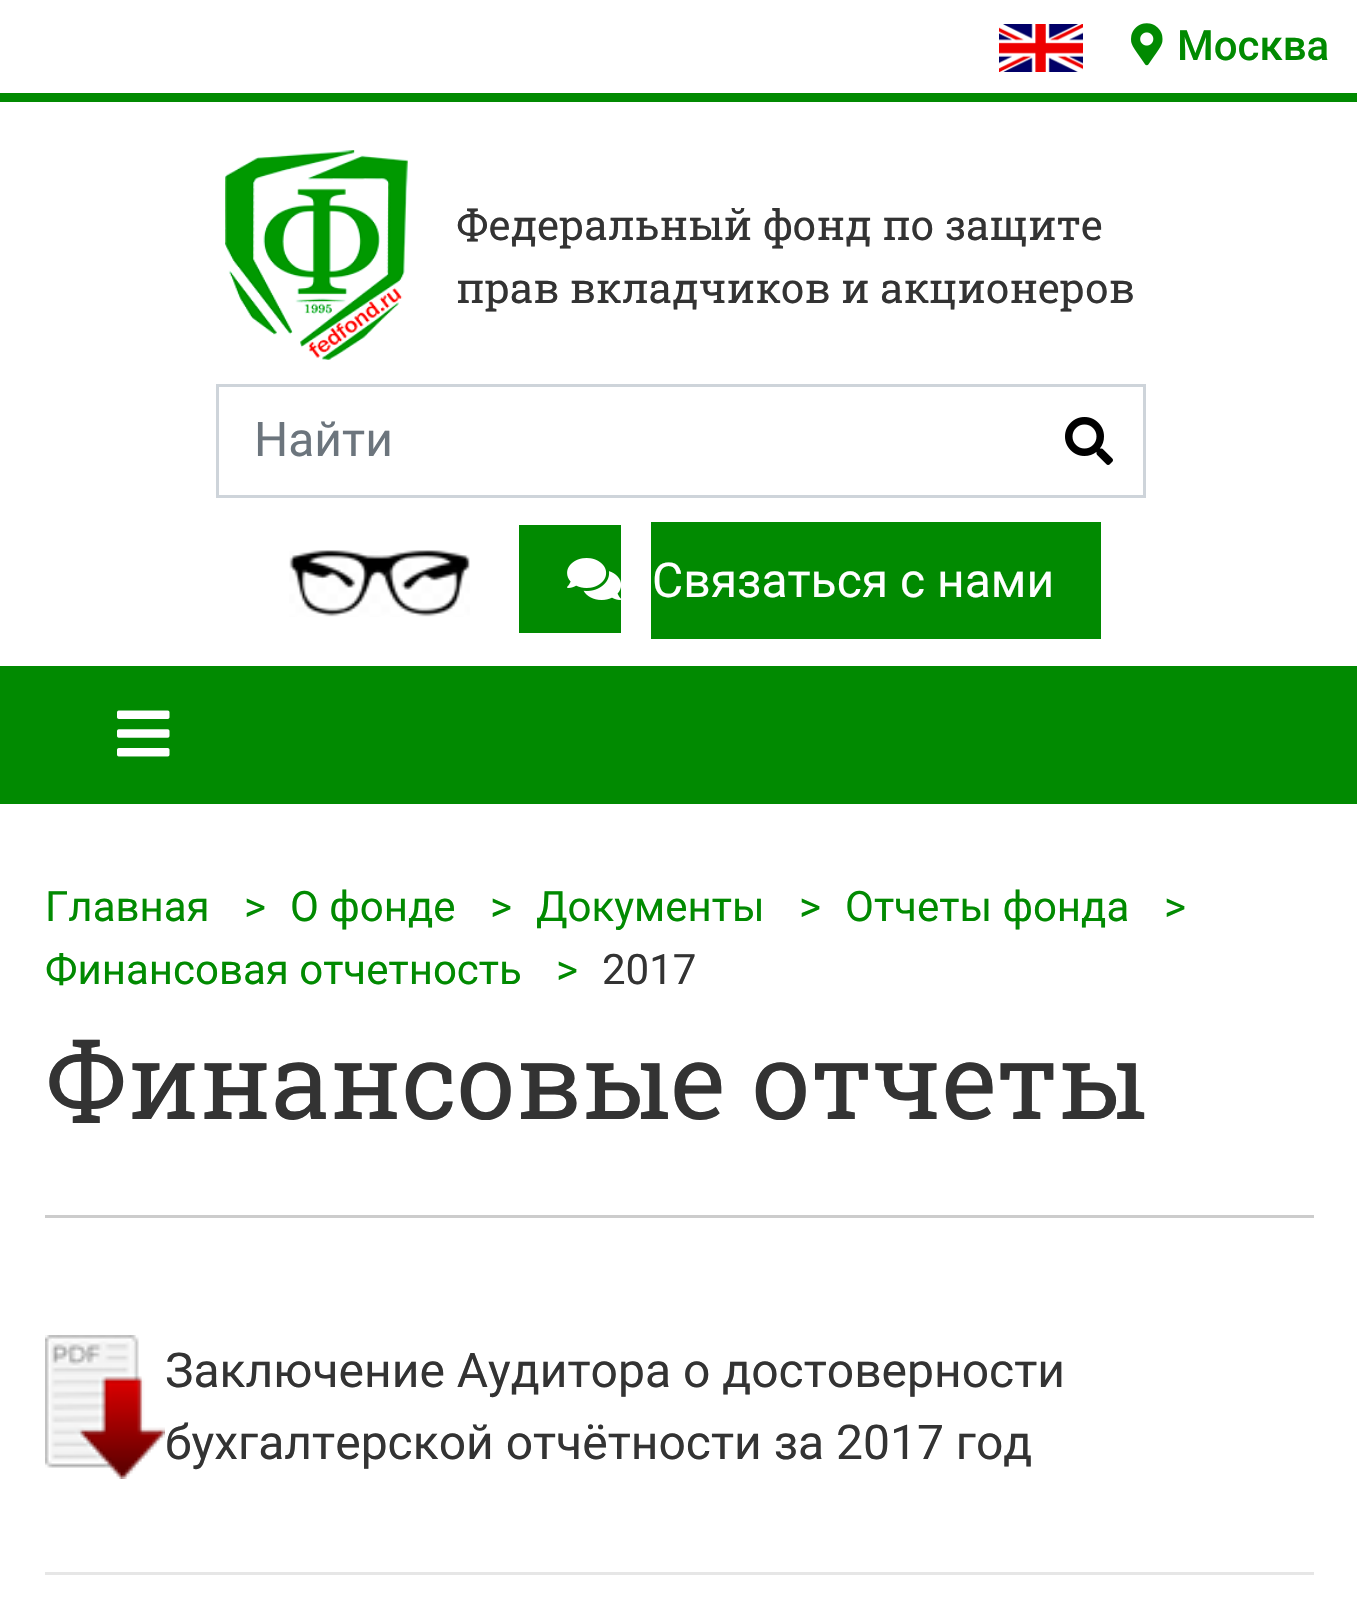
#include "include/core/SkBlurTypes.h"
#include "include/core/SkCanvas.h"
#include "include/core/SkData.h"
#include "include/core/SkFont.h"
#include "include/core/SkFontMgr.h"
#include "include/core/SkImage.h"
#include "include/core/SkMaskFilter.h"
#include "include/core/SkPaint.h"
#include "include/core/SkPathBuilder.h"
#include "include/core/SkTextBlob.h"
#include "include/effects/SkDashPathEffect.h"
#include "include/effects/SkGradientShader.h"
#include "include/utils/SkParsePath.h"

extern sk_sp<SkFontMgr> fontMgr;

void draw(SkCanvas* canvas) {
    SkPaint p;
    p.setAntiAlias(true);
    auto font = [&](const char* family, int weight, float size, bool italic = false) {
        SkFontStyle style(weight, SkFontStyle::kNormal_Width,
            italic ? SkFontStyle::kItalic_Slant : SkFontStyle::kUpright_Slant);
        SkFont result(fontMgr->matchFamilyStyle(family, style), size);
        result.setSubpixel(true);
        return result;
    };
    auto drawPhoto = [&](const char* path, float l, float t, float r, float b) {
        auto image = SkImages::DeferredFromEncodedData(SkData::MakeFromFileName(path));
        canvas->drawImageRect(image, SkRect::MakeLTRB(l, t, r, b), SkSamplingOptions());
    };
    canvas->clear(0xFFFFFFFF);
    p.setColor(0xFF018A01);
    canvas->drawRect(SkRect::MakeLTRB(0, 93, 1357, 102), p);
    drawPhoto("media/1.png", 999, 24, 1083, 72);
    drawPhoto("media/2.png", 1131, 23, 1163, 66);
    auto font1 = font("Roboto", 500, 42);
    canvas->drawString("Москва", 1177, 60, font1, p);
    drawPhoto("media/3.png", 225, 150, 408, 360);
    auto font2 = font("Roboto Slab", 400, 42);
    p.setColor(0xFF333333);
    canvas->drawString("Федеральный фонд по защите", 456, 240, font2, p);
    canvas->drawString("прав вкладчиков и акционеров", 456, 303, font2, p);
    p.setStyle(SkPaint::kStroke_Style);
    p.setStrokeWidth(3);
    p.setColor(0xFFCED4DA);
    canvas->drawRect(SkRect::MakeLTRB(217.5f, 385.5f, 1144.5f, 496.5f), p);
    auto font3 = font("Roboto", 400, 48);
    p.setStyle(SkPaint::kFill_Style);
    p.setColor(0xFF6C757D);
    canvas->drawString("Найти", 254, 456, font3, p);
    drawPhoto("media/4.png", 1065, 417, 1113, 465);
    drawPhoto("media/5.png", 289, 550, 470, 617);
    p.setColor(0xFF018A01);
    canvas->drawRect(SkRect::MakeLTRB(519, 525, 621, 633), p);
    canvas->drawRect(SkRect::MakeLTRB(651, 522, 1101, 639), p);
    drawPhoto("media/6.png", 567, 558, 621, 600);
    p.setColor(0xFFFFFFFF);
    canvas->drawString("Связаться с нами", 652, 597, font3, p);
    p.setColor(0xFF018A01);
    canvas->drawRect(SkRect::MakeLTRB(0, 666, 1357, 804), p);
    drawPhoto("media/7.png", 117, 710, 170, 757);
    auto font4 = font("Roboto", 400, 42);
    {
        const struct { const char* s; float x, y; } items[] = {
            {"Главная", 45, 921},
            {">", 244, 921},
            {"О фонде", 290, 921},
            {">", 490, 921},
            {"Документы", 536, 921},
            {">", 799, 921},
            {"Отчеты фонда", 845, 921},
            {">", 1164, 921},
            {"Финансовая отчетность", 45, 984},
            {">", 556, 984},
        };
        for (auto [s, x, y] : items) {
            canvas->drawString(s, x, y, font4, p);
        }
    }
    p.setColor(0xFF333333);
    canvas->drawString("2017", 602, 984, font4, p);
    p.setColor(0xFFCCCCCC);
    canvas->drawRect(SkRect::MakeLTRB(45, 1215, 1314, 1218), p);
    auto font5 = font("Roboto Slab", 400, 105.6f);
    p.setColor(0xFF333333);
    canvas->drawString("Финансовые отчеты", 45, 1119, font5, p);
    drawPhoto("media/8.png", 45, 1335, 165, 1479);
    canvas->drawString("Заключение Аудитора о достоверности", 165, 1387, font3, p);
    canvas->drawString("бухгалтерской отчётности за 2017 год", 165, 1459, font3, p);
    p.setColor(0xFFE6E6E6);
    canvas->drawRect(SkRect::MakeLTRB(45, 1572, 1314, 1575), p);
}
